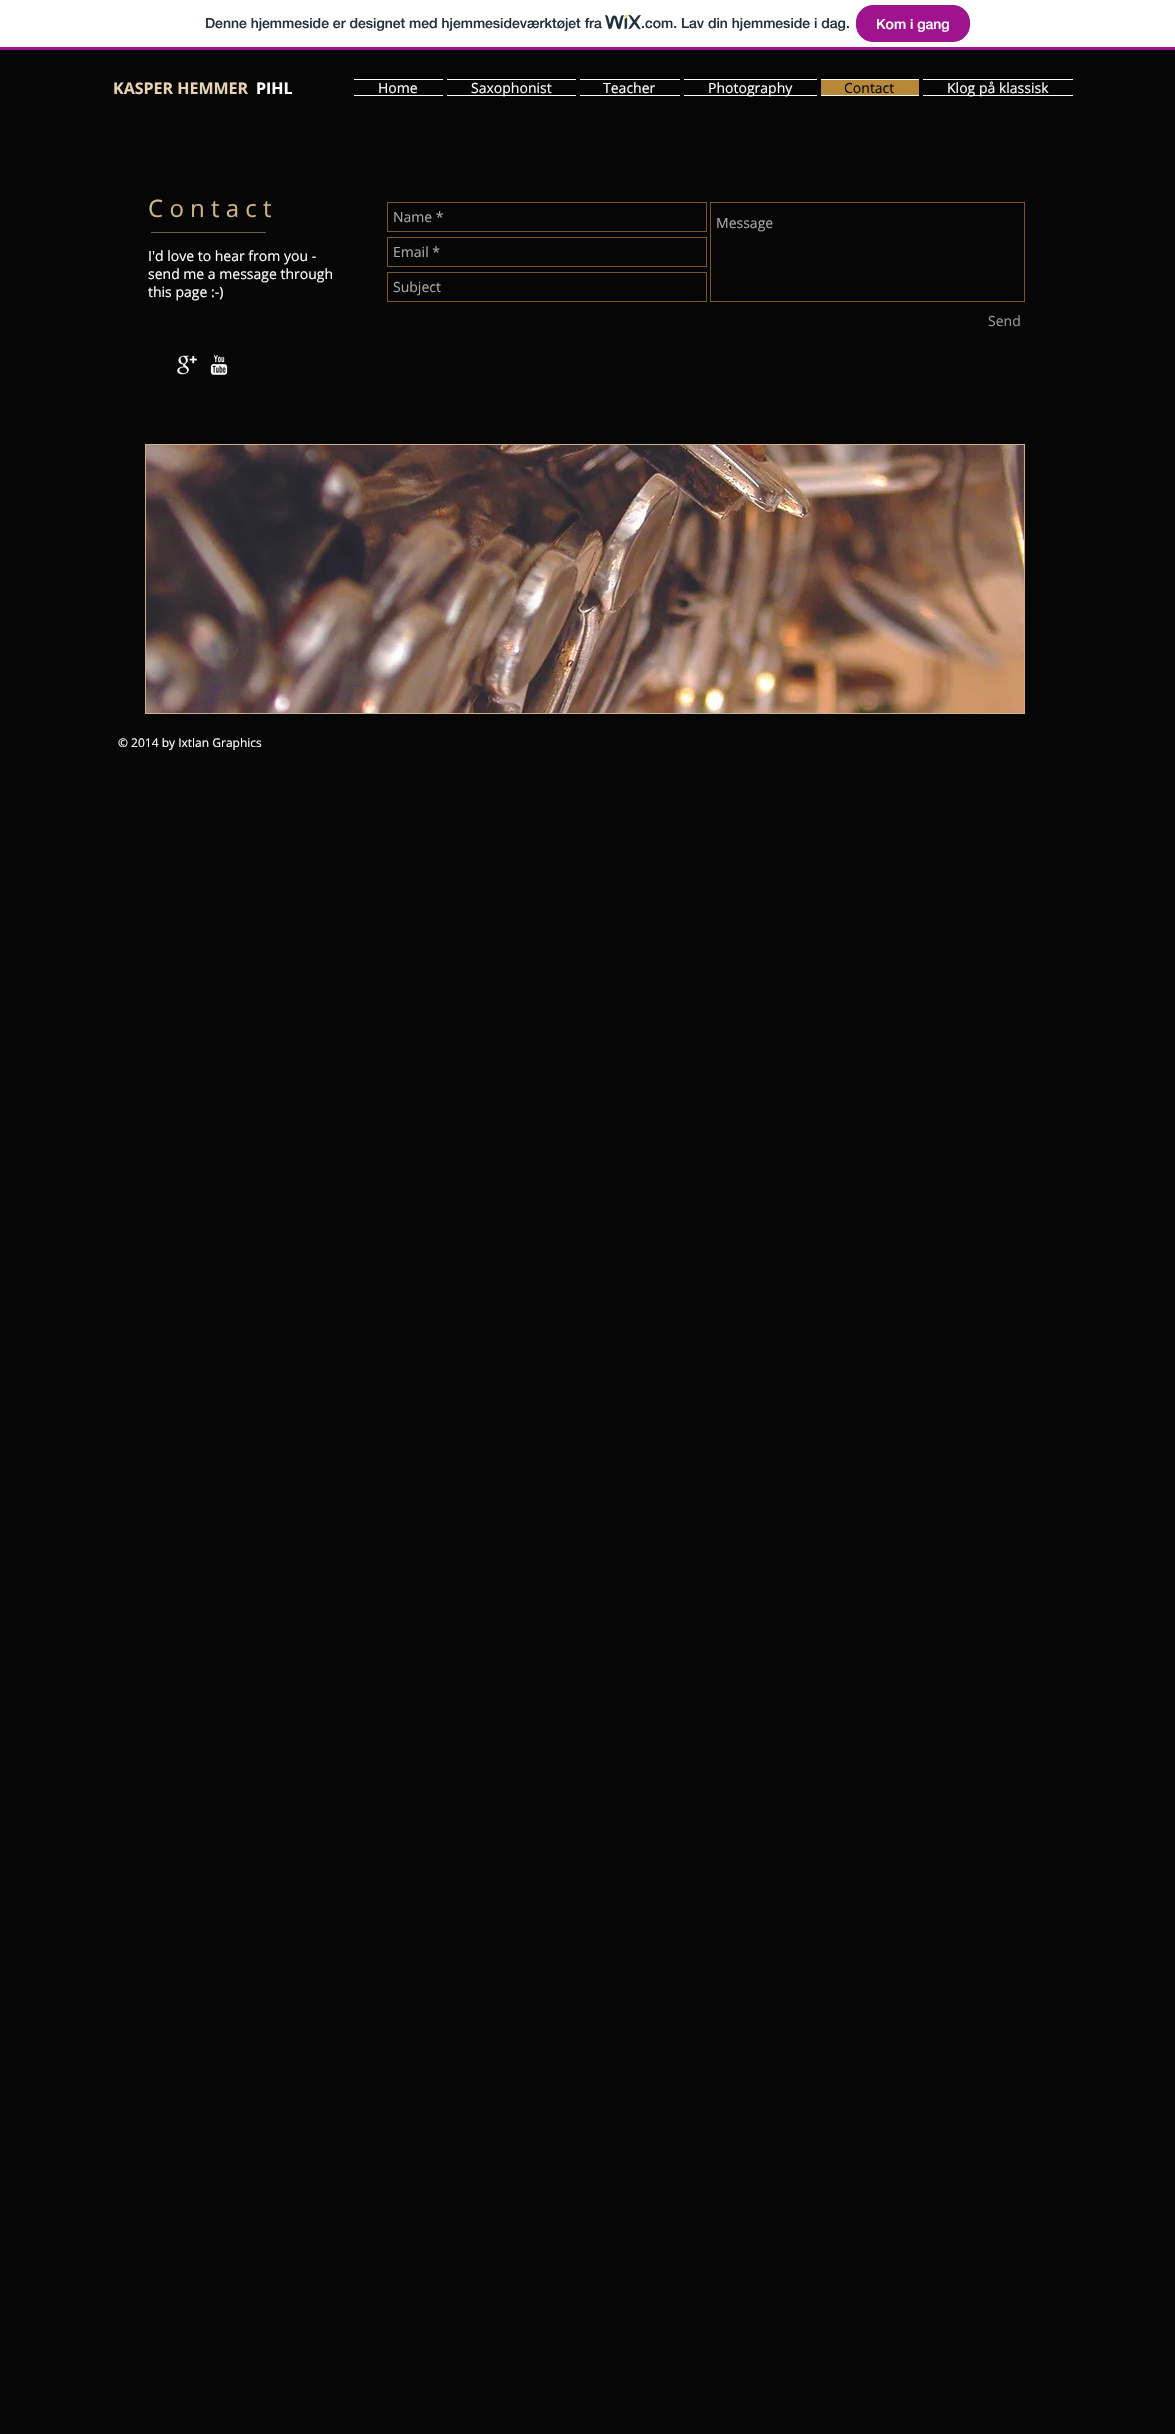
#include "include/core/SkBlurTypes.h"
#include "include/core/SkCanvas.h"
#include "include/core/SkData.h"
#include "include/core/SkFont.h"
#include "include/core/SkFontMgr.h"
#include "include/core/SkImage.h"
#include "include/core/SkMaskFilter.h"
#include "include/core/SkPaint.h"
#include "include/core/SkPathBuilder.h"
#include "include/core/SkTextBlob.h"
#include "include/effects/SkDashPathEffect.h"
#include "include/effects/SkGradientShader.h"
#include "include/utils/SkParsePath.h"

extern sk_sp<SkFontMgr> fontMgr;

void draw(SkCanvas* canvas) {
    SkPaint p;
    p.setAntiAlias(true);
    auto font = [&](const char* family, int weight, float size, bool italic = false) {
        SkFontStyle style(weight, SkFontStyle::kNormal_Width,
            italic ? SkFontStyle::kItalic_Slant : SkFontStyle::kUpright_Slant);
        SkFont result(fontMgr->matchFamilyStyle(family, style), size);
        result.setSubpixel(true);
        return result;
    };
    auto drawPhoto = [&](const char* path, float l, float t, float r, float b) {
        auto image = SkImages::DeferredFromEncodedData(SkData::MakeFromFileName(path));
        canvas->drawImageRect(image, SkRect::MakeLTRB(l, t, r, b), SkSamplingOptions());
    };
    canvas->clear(0xFFFFFFFF);
    p.setColor(0xFFA0138E);
    canvas->drawRect(SkRect::MakeLTRB(0, 47, 1175, 50), p);
    auto font1 = font("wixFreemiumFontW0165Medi", 500, 14);
    p.setColor(0xFF20303C);
    canvas->drawString("Denne hjemmeside er designet med hjemmesideværktøjet fra", 205, 28, font1, p);
    drawPhoto("media/1.png", 605, 15, 641, 30);
    canvas->drawString(".com. Lav din hjemmeside i dag.", 641, 28, font1, p);
    p.setColor(0xFFA0138E);
    canvas->drawRoundRect(SkRect::MakeLTRB(856.5f, 5.5f, 969.5f, 41.5f), 16.5f, 16.5f, p);
    p.setStyle(SkPaint::kStroke_Style);
    p.setStrokeWidth(1);
    canvas->drawRoundRect(SkRect::MakeLTRB(856.5f, 5.5f, 969.5f, 41.5f), 16.5f, 16.5f, p);
    p.setStyle(SkPaint::kFill_Style);
    p.setColor(0xFFFFFFFF);
    canvas->drawString("Kom i gang", 876, 29, font1, p);
    p.setColor(0xFF070606);
    canvas->drawRect(SkRect::MakeLTRB(0, 50, 1175, 2434), p);
    auto font2 = font("Open Sans", 700, 16);
    p.setColor(0xFFE7D3B1);
    canvas->drawString("KASPER HEMMER", 113, 94, font2, p);
    p.setColor(0xFFFFFFFF);
    canvas->drawString("PIHL", 256, 94, font2, p);
    canvas->drawRect(SkRect::MakeLTRB(354, 79, 443, 80), p);
    canvas->drawRect(SkRect::MakeLTRB(354, 95, 443, 96), p);
    auto font3 = font("Open Sans", 400, 14);
    canvas->drawString("Home", 378, 93, font3, p);
    canvas->drawRect(SkRect::MakeLTRB(447, 79, 576, 80), p);
    canvas->drawRect(SkRect::MakeLTRB(447, 95, 576, 96), p);
    canvas->drawString("Saxophonist", 471, 93, font3, p);
    canvas->drawRect(SkRect::MakeLTRB(580, 79, 680, 80), p);
    canvas->drawRect(SkRect::MakeLTRB(580, 95, 680, 96), p);
    canvas->drawString("Teacher", 603, 93, font3, p);
    canvas->drawRect(SkRect::MakeLTRB(684, 79, 817, 80), p);
    canvas->drawRect(SkRect::MakeLTRB(684, 95, 817, 96), p);
    canvas->drawString("Photography", 708, 93, font3, p);
    {
        const struct { float l, t, r, b; SkColor color; } items[] = {
            {821, 80, 919, 95, 0xFFB78837},
            {821, 79, 919, 80, 0xFFFFFFFF},
            {821, 95, 919, 96, 0xFFFFFFFF},
        };
        for (auto [l, t, r, b, color] : items) {
            p.setColor(color);
            canvas->drawRect(SkRect::MakeLTRB(l, t, r, b), p);
        }
    }
    p.setColor(0xFF070606);
    canvas->drawString("Contact", 844, 93, font3, p);
    p.setColor(0xFFFFFFFF);
    canvas->drawRect(SkRect::MakeLTRB(923, 79, 1073, 80), p);
    canvas->drawRect(SkRect::MakeLTRB(923, 95, 1073, 96), p);
    canvas->drawString("Klog på klassisk", 947, 93, font3, p);
    auto font4 = font("Open Sans", 400, 24);
    p.setColor(0xFFCFB486);
    canvas->drawString("C o n t a c t", 148, 217, font4, p);
    p.setColor(0xFF6B5D46);
    canvas->drawRect(SkRect::MakeLTRB(151, 232, 266, 233), p);
    p.setStyle(SkPaint::kStroke_Style);
    p.setColor(0xFF7A5A24);
    canvas->drawRect(SkRect::MakeLTRB(387.5f, 202.5f, 706.5f, 231.5f), p);
    p.setStyle(SkPaint::kFill_Style);
    p.setColor(0xFFA9A9A9);
    canvas->drawString("Name *", 393, 222, font3, p);
    p.setStyle(SkPaint::kStroke_Style);
    p.setColor(0xFF7A5A24);
    canvas->drawRect(SkRect::MakeLTRB(710.5f, 202.5f, 1024.5f, 301.5f), p);
    p.setStyle(SkPaint::kFill_Style);
    p.setColor(0xFFA9A9A9);
    canvas->drawString("Message", 716, 228, font3, p);
    p.setStyle(SkPaint::kStroke_Style);
    p.setColor(0xFF7A5A24);
    canvas->drawRect(SkRect::MakeLTRB(387.5f, 237.5f, 706.5f, 266.5f), p);
    p.setStyle(SkPaint::kFill_Style);
    p.setColor(0xFFA9A9A9);
    canvas->drawString("Email *", 393, 257, font3, p);
    p.setStyle(SkPaint::kStroke_Style);
    p.setColor(0xFF7A5A24);
    canvas->drawRect(SkRect::MakeLTRB(387.5f, 272.5f, 706.5f, 301.5f), p);
    p.setStyle(SkPaint::kFill_Style);
    p.setColor(0xFFA9A9A9);
    canvas->drawString("Subject", 393, 292, font3, p);
    p.setColor(0xFF9C9797);
    canvas->drawString("Send", 988, 326, font3, p);
    p.setColor(0xFFFFFFFF);
    {
        const struct { const char* s; float x, y; } items[] = {
            {"I'd love to hear from you -", 148, 261},
            {"send me a message through", 148, 279},
            {"this page :-)", 148, 297},
        };
        for (auto [s, x, y] : items) {
            canvas->drawString(s, x, y, font3, p);
        }
    }
    drawPhoto("media/2.png", 177, 355, 197, 375);
    drawPhoto("media/3.png", 210, 355, 228, 375);
    p.setColor(0xFFCFB486);
    canvas->drawRect(SkRect::MakeLTRB(145, 444, 1025, 714), p);
    drawPhoto("media/4.png", 146, 445, 1024, 713);
    auto font5 = font("Open Sans", 400, 12);
    p.setColor(0xFFFFFFFF);
    canvas->drawString("© 2014 by Ixtlan Graphics", 118, 747, font5, p);
}
